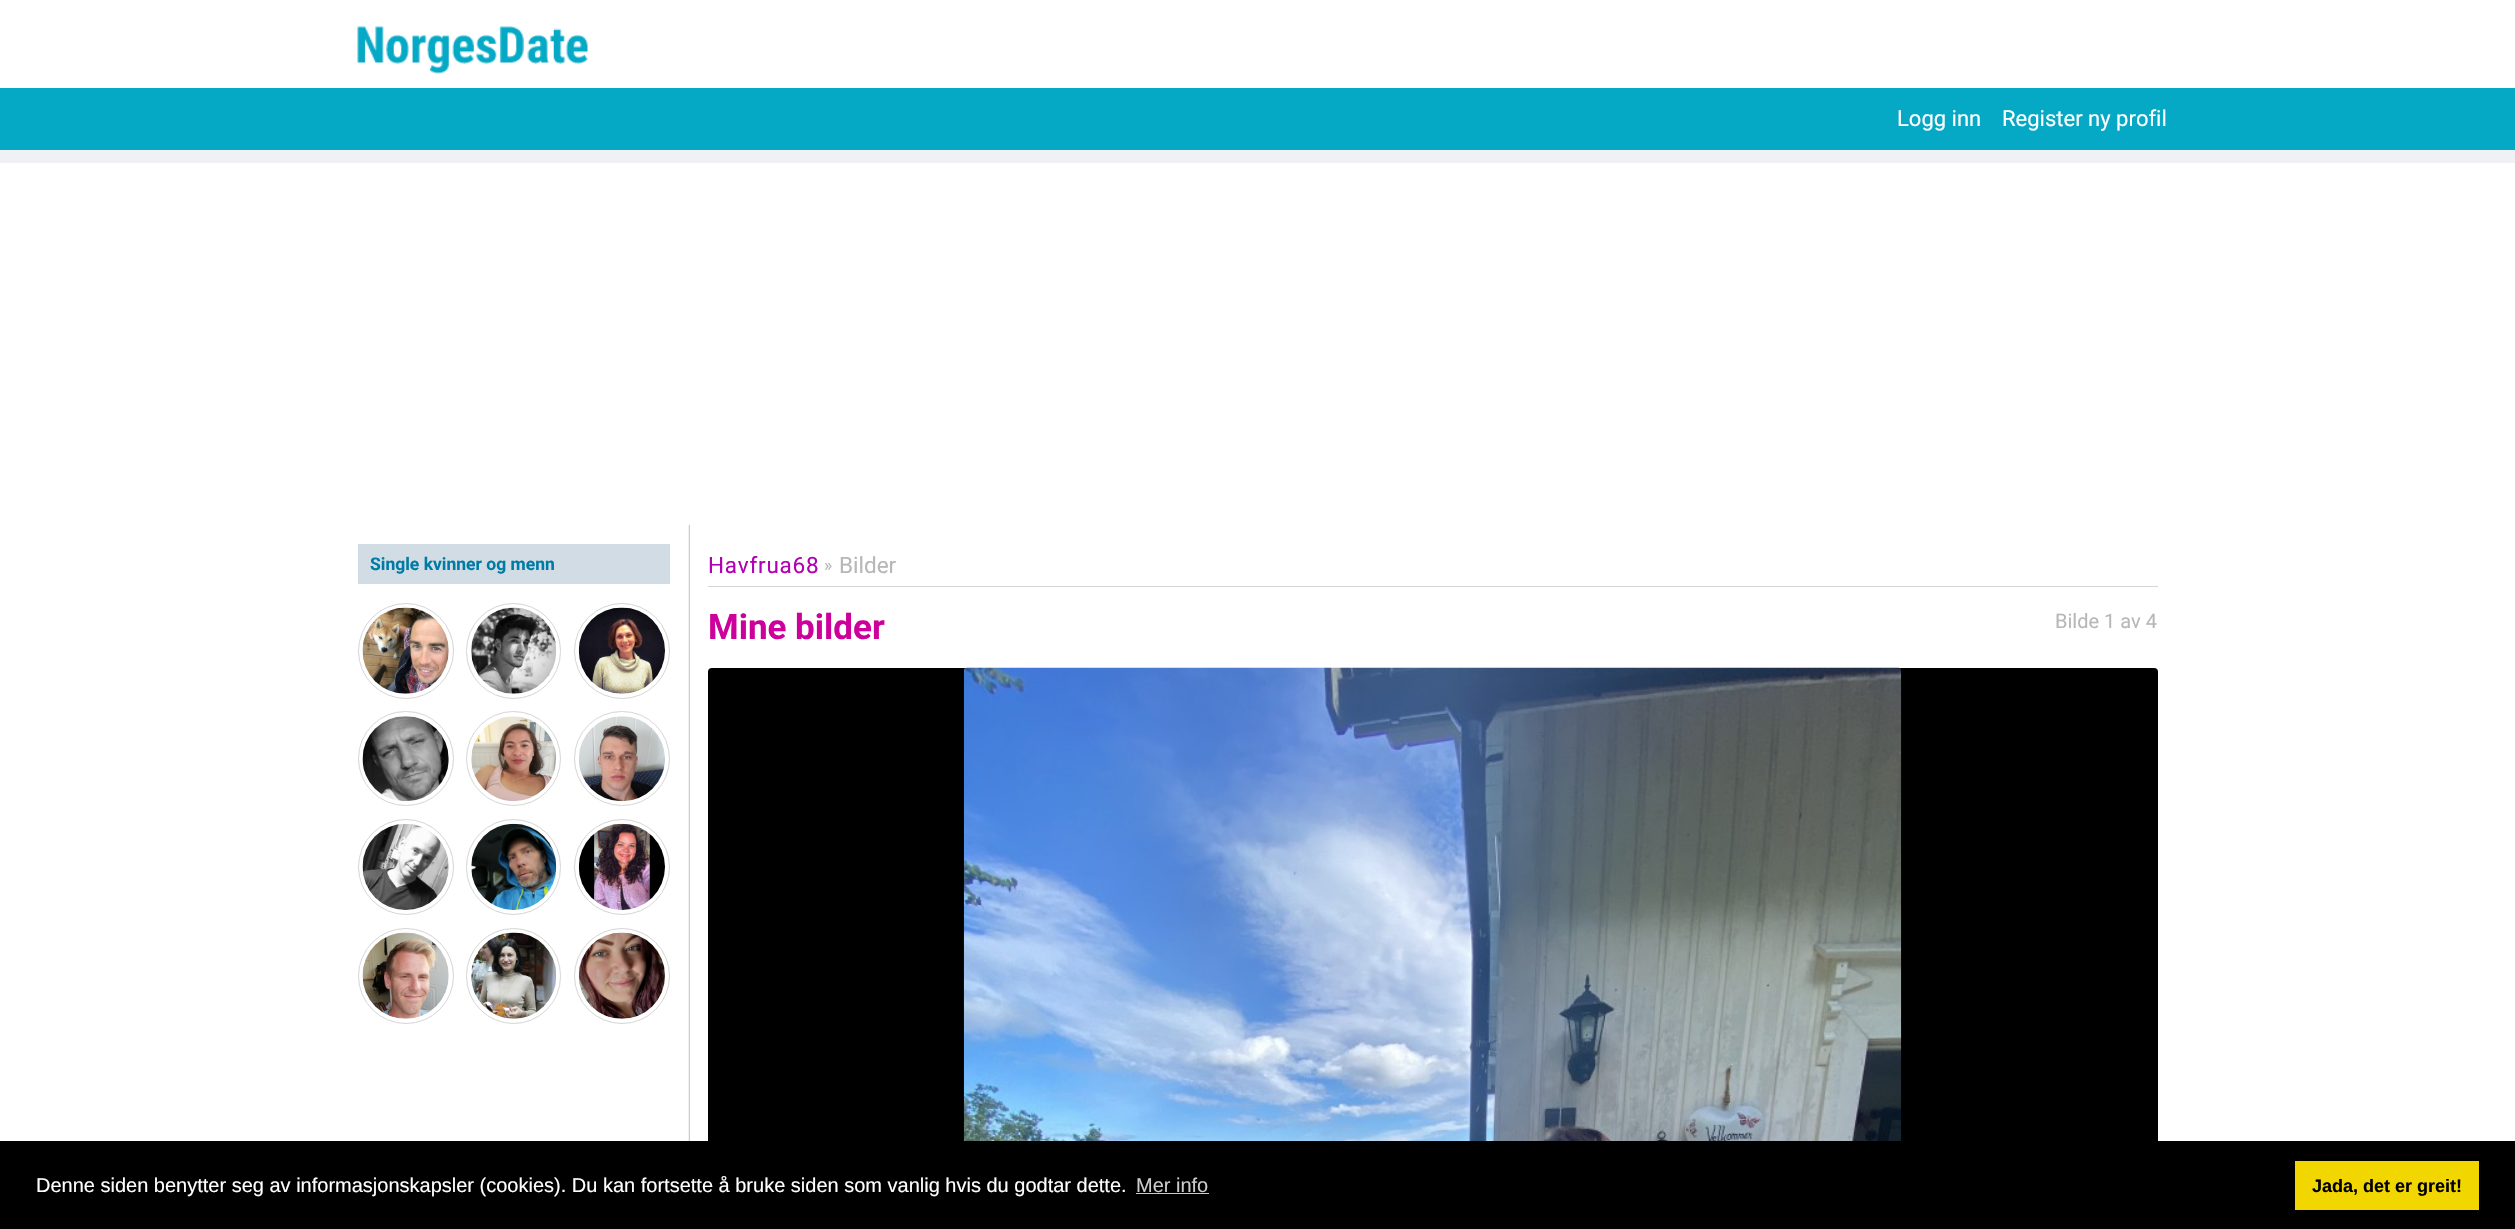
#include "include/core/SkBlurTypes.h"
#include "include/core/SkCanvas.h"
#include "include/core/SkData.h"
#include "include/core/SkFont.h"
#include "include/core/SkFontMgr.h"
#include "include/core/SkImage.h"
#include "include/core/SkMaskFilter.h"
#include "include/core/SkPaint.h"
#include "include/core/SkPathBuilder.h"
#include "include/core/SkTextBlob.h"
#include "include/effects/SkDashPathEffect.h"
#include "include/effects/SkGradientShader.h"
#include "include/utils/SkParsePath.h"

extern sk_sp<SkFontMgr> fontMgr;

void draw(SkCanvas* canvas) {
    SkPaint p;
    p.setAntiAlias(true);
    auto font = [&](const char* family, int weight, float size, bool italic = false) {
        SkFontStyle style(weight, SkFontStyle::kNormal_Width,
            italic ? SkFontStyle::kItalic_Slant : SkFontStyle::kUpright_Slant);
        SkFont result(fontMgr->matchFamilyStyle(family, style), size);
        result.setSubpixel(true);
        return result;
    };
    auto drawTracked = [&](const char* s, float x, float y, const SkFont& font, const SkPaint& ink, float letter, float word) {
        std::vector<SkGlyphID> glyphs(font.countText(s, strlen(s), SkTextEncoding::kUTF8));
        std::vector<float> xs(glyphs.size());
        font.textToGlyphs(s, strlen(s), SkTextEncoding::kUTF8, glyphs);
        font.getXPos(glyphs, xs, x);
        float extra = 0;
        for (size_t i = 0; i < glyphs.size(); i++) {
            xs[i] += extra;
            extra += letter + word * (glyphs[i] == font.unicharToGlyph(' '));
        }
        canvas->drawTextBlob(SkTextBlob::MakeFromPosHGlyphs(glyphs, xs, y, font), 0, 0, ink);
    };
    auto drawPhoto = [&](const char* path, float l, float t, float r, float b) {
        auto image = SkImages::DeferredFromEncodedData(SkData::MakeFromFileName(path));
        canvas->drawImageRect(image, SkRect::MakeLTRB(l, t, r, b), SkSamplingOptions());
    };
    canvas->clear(0xFFEFF1F5);
    p.setColor(0xFFFFFFFF);
    canvas->drawRect(SkRect::MakeLTRB(0, 0, 2515, 88), p);
    drawPhoto("media/1.png", 357, 26, 588, 74);
    p.setColor(0xFF06A9C5);
    canvas->drawRect(SkRect::MakeLTRB(0, 88, 2515, 150), p);
    auto font1 = font("Roboto", 400, 22);
    p.setColor(0xFFFFFFFF);
    canvas->drawString("Logg inn", 1897, 126, font1, p);
    canvas->drawString("Register ny profil", 2002, 126, font1, p);
    canvas->drawRect(SkRect::MakeLTRB(0, 163, 2515, 1141), p);
    p.setColor(0xFFD1DCE5);
    canvas->drawRect(SkRect::MakeLTRB(358, 544, 670, 584), p);
    auto font2 = font("Roboto", 700, 17.5f);
    p.setColor(0xFF007BA5);
    canvas->drawString("Single kvinner og menn", 370, 570, font2, p);
    p.setStyle(SkPaint::kStroke_Style);
    p.setStrokeWidth(1);
    p.setColor(0xFFD5D5D5);
    canvas->drawCircle(406, 651, 47.5f, p);
    drawPhoto("media/2.png", 362, 607, 449, 694);
    canvas->drawRoundRect(SkRect::MakeLTRB(466.5f, 603.5f, 560.5f, 698.5f), 47, 47, p);
    drawPhoto("media/3.png", 471, 607, 557, 694);
    canvas->drawCircle(622, 651, 47.5f, p);
    drawPhoto("media/4.png", 578, 607, 665, 694);
    canvas->drawRoundRect(SkRect::MakeLTRB(358.5f, 711.5f, 453.5f, 805.5f), 47, 47, p);
    drawPhoto("media/5.png", 362, 716, 449, 802);
    canvas->drawCircle(513.5f, 758.5f, 47, p);
    drawPhoto("media/6.png", 471, 716, 556, 802);
    canvas->drawRoundRect(SkRect::MakeLTRB(574.5f, 711.5f, 669.5f, 805.5f), 47, 47, p);
    drawPhoto("media/7.png", 579, 716, 665, 802);
    canvas->drawCircle(406, 867, 47.5f, p);
    drawPhoto("media/8.png", 362, 823, 449, 910);
    canvas->drawRoundRect(SkRect::MakeLTRB(466.5f, 819.5f, 560.5f, 914.5f), 47, 47, p);
    drawPhoto("media/9.png", 471, 823, 557, 910);
    canvas->drawCircle(622, 867, 47.5f, p);
    drawPhoto("media/10.png", 578, 823, 665, 910);
    canvas->drawCircle(406, 976, 47.5f, p);
    drawPhoto("media/11.png", 362, 932, 449, 1019);
    canvas->drawRoundRect(SkRect::MakeLTRB(466.5f, 928.5f, 560.5f, 1023.5f), 47, 47, p);
    drawPhoto("media/12.png", 471, 932, 557, 1019);
    canvas->drawCircle(622, 976, 47.5f, p);
    drawPhoto("media/13.png", 578, 932, 665, 1019);
    drawPhoto("media/14.png", 688, 525, 690, 1141);
    p.setStyle(SkPaint::kFill_Style);
    canvas->drawRect(SkRect::MakeLTRB(708, 586, 2158, 587), p);
    auto font3 = font("Roboto", 400, 22.5f);
    p.setColor(0xFFB200B2);
    drawTracked("Havfrua68", 708, 573, font3, p, 0.75f, 0);
    auto font4 = font("Roboto", 400, 17.5f);
    p.setColor(0xFFB7B7B7);
    canvas->drawString("»", 824, 571, font4, p);
    canvas->drawString("Bilder", 839, 573, font3, p);
    auto font5 = font("Roboto", 700, 35);
    p.setColor(0xFFCE009C);
    canvas->drawString("Mine bilder", 708, 639, font5, p);
    auto font6 = font("Roboto", 400, 20);
    p.setColor(0xFFB7B7B7);
    canvas->drawString("Bilde 1 av 4", 2055, 628, font6, p);
    p.setColor(0xFF000000);
    canvas->drawRoundRect(SkRect::MakeLTRB(708, 668, 2158, 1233), 4, 4, p);
    drawPhoto("media/15.png", 963, 667, 1902, 1141);
    canvas->drawRect(SkRect::MakeLTRB(0, 1141, 2515, 1229), p);
    auto font7 = font("Liberation Sans", 400, 20);
    p.setColor(0xFFFFFFFF);
    canvas->drawString("Denne siden benytter seg av informasjonskapsler (cookies). Du kan fortsette å bruke siden som vanlig hvis du godtar dette.", 36, 1192, font7, p);
    p.setColor(0xFFCCCCCC);
    canvas->drawString("Mer info", 1136, 1192, font7, p);
    canvas->drawRect(SkRect::MakeLTRB(1136, 1193, 1209, 1194), p);
    p.setColor(0xFFF1D600);
    canvas->drawRect(SkRect::MakeLTRB(2295, 1161, 2479, 1210), p);
    auto font8 = font("Liberation Sans", 700, 18);
    p.setColor(0xFF000000);
    canvas->drawString("Jada, det er greit!", 2312, 1192, font8, p);
}
